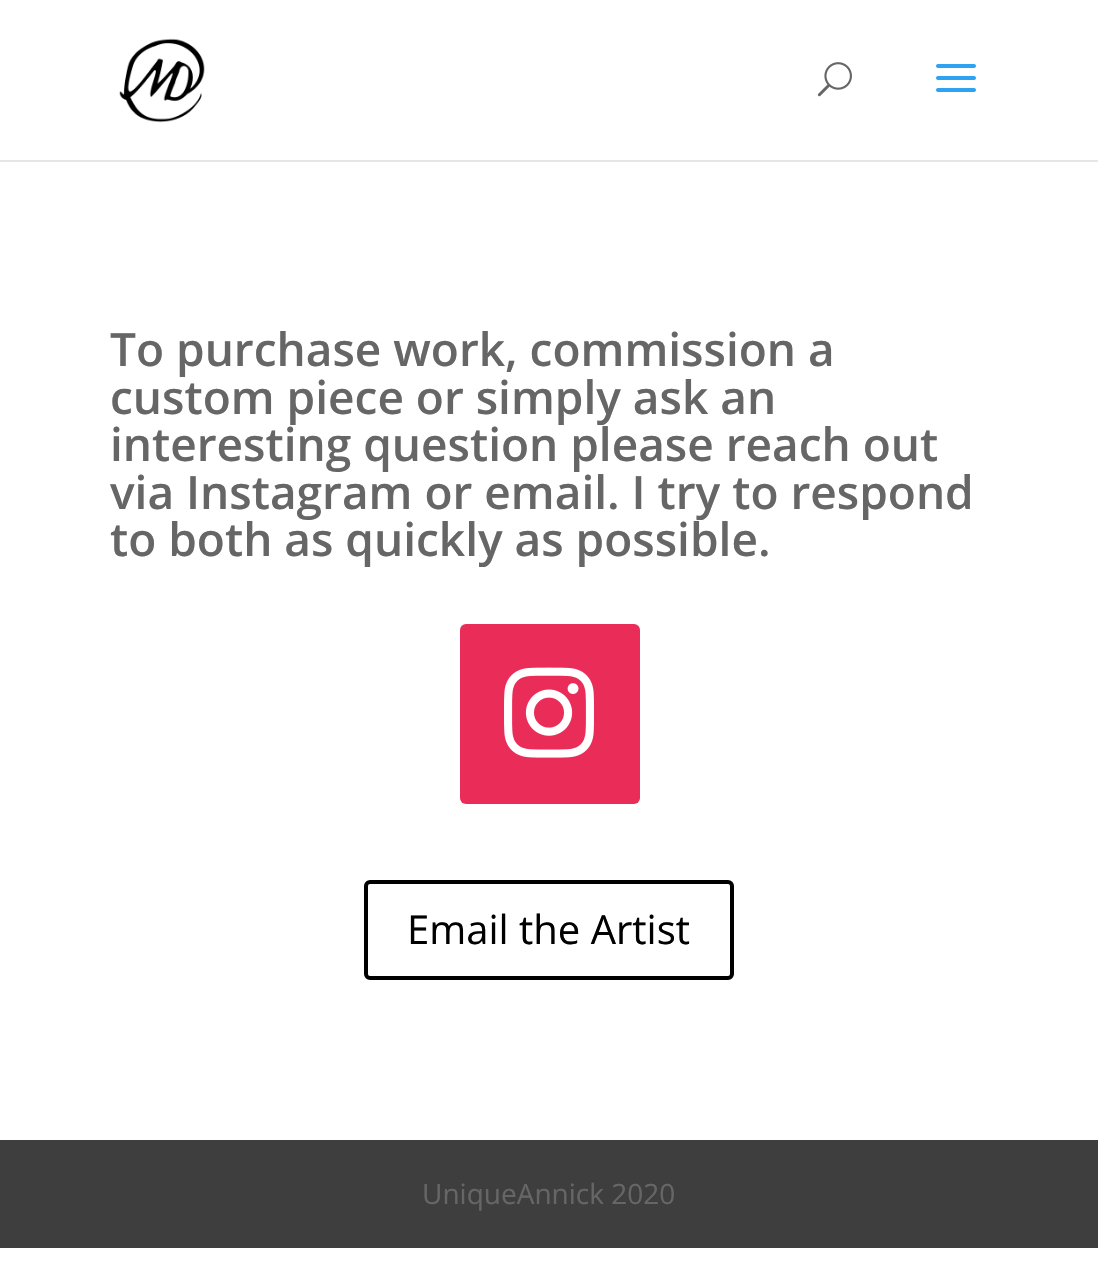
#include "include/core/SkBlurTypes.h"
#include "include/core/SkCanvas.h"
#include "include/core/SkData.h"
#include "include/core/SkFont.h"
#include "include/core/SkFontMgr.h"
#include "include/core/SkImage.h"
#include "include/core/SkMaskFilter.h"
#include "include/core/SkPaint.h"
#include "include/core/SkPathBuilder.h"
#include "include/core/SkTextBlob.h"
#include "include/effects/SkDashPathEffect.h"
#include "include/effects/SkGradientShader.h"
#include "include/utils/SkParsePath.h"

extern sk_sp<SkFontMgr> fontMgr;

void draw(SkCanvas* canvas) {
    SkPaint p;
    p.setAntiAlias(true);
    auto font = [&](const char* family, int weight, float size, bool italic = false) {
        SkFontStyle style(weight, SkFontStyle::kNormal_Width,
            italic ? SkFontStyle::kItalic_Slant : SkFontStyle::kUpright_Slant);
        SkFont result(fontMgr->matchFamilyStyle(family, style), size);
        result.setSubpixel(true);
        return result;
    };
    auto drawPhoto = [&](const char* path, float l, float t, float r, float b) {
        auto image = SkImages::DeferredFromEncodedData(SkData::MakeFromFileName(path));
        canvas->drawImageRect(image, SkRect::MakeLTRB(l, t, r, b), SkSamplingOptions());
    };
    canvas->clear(0xFFFFFFFF);
    p.setColor(0xFFE6E6E6);
    canvas->drawRect(SkRect::MakeLTRB(0, 160, 1098, 162), p);
    drawPhoto("media/1.png", 119, 38, 205, 123);
    drawPhoto("media/2.png", 817, 62, 852, 97);
    drawPhoto("media/3.png", 936, 64, 976, 92);
    auto font1 = font("Open Sans", 600, 46);
    p.setColor(0xFF666666);
    {
        const struct { const char* s; float x, y; } items[] = {
            {"To purchase work, commission a", 110, 366},
            {"custom piece or simply ask an", 110, 414},
            {"interesting question please reach out", 110, 461},
            {"via Instagram or email. I try to respond", 110, 509},
            {"to both as quickly as possible.", 110, 556},
        };
        for (auto [s, x, y] : items) {
            canvas->drawString(s, x, y, font1, p);
        }
    }
    p.setColor(0xFFEA2C59);
    canvas->drawRoundRect(SkRect::MakeLTRB(460, 624, 640, 804), 6, 6, p);
    drawPhoto("media/4.png", 504, 667, 594, 758);
    p.setStyle(SkPaint::kStroke_Style);
    p.setStrokeWidth(4);
    p.setColor(0xFF000000);
    canvas->drawRoundRect(SkRect::MakeLTRB(366, 882, 732, 978), 4, 4, p);
    auto font2 = font("Open Sans", 400, 40);
    p.setStyle(SkPaint::kFill_Style);
    canvas->drawString("Email the Artist", 407, 944, font2, p);
    p.setColor(0xFF3E3E3E);
    canvas->drawRect(SkRect::MakeLTRB(0, 1140, 1098, 1248), p);
    auto font3 = font("Open Sans", 400, 28);
    p.setColor(0xFF666666);
    canvas->drawString("UniqueAnnick 2020", 422, 1204, font3, p);
}
